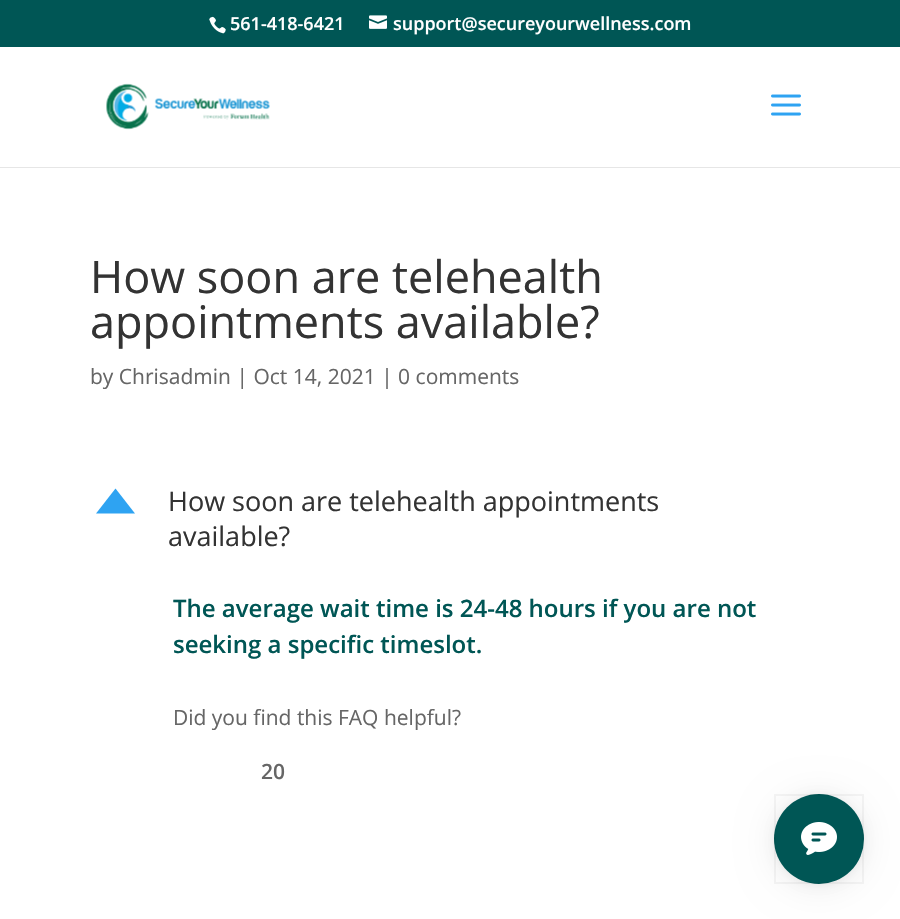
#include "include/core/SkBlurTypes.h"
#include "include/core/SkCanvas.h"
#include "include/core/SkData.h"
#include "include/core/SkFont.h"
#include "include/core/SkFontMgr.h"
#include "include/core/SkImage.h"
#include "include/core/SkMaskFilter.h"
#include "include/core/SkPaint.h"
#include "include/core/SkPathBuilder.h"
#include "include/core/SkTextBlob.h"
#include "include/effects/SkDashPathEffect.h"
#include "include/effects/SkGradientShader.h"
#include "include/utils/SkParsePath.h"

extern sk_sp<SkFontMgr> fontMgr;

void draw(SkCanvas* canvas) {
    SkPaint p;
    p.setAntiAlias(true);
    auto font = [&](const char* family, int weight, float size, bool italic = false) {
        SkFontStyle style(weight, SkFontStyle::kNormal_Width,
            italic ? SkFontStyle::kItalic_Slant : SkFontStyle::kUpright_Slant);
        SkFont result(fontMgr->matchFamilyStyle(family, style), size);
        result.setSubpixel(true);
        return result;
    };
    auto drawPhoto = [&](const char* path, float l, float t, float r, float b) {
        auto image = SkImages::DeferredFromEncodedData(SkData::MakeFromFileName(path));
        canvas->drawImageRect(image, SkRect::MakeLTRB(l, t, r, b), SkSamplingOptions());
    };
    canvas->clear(0xFF005655);
    drawPhoto("media/1.png", 209, 16, 226, 34);
    auto font1 = font("Open Sans", 600, 18);
    p.setColor(0xFFFFFFFF);
    canvas->drawString("561-418-6421", 230, 30, font1, p);
    drawPhoto("media/2.png", 369, 15, 387, 29);
    canvas->drawString("support@secureyourwellness.com", 393, 30, font1, p);
    canvas->drawRect(SkRect::MakeLTRB(0, 47, 900, 167), p);
    drawPhoto("media/3.png", 106, 83, 270, 130);
    drawPhoto("media/4.png", 771, 94, 801, 116);
    canvas->drawRect(SkRect::MakeLTRB(0, 168, 900, 919), p);
    p.setColor(0xFFE6E6E6);
    canvas->drawRect(SkRect::MakeLTRB(0, 167, 900, 168), p);
    auto font2 = font("Open Sans", 400, 45);
    p.setColor(0xFF333333);
    canvas->drawString("How soon are telehealth", 90, 293, font2, p);
    canvas->drawString("appointments available?", 90, 338, font2, p);
    auto font3 = font("Open Sans", 400, 21);
    p.setColor(0xFF666666);
    canvas->drawString("by Chrisadmin | Oct 14, 2021 | 0 comments", 90, 384, font3, p);
    p.setColor(0xFF2EA3F2);
    canvas->drawPath(SkPathBuilder().moveTo(96, 513.5f).lineTo(115.5f, 488.5f).lineTo(135, 513.5f).close().detach(), p);
    auto font4 = font("Open Sans", 400, 27);
    p.setColor(0xFF333333);
    canvas->drawString("How soon are telehealth appointments", 168, 511, font4, p);
    canvas->drawString("available?", 168, 546, font4, p);
    auto font5 = font("Open Sans", 600, 24);
    p.setColor(0xFF005655);
    canvas->drawString("The average wait time is 24-48 hours if you are not", 173, 617, font5, p);
    canvas->drawString("seeking a specific timeslot.", 173, 653, font5, p);
    p.setColor(0xFF666666);
    canvas->drawString("Did you find this FAQ helpful?", 173, 725, font3, p);
    auto font6 = font("Open Sans", 600, 21);
    canvas->drawString("20", 261, 779, font6, p);
    p.setColor(0x14000000);
    p.setMaskFilter(SkMaskFilter::MakeBlur(kNormal_SkBlurStyle, 18));
    canvas->drawRoundRect(SkRect::MakeLTRB(774, 797, 864, 887), 45, 45, p);
    p.setMaskFilter(nullptr);
    p.setColor(0x0F000000);
    p.setMaskFilter(SkMaskFilter::MakeBlur(kNormal_SkBlurStyle, 4.5f));
    canvas->drawRoundRect(SkRect::MakeLTRB(774, 795, 864, 885), 45, 45, p);
    p.setMaskFilter(nullptr);
    p.setColor(0xFF005655);
    canvas->drawCircle(819, 839, 45, p);
    p.setStyle(SkPaint::kStroke_Style);
    p.setStrokeWidth(2);
    p.setColor(0x0A000000);
    canvas->drawRect(SkRect::MakeLTRB(775, 795, 863, 883), p);
    drawPhoto("media/5.png", 801, 822, 837, 855);
}
